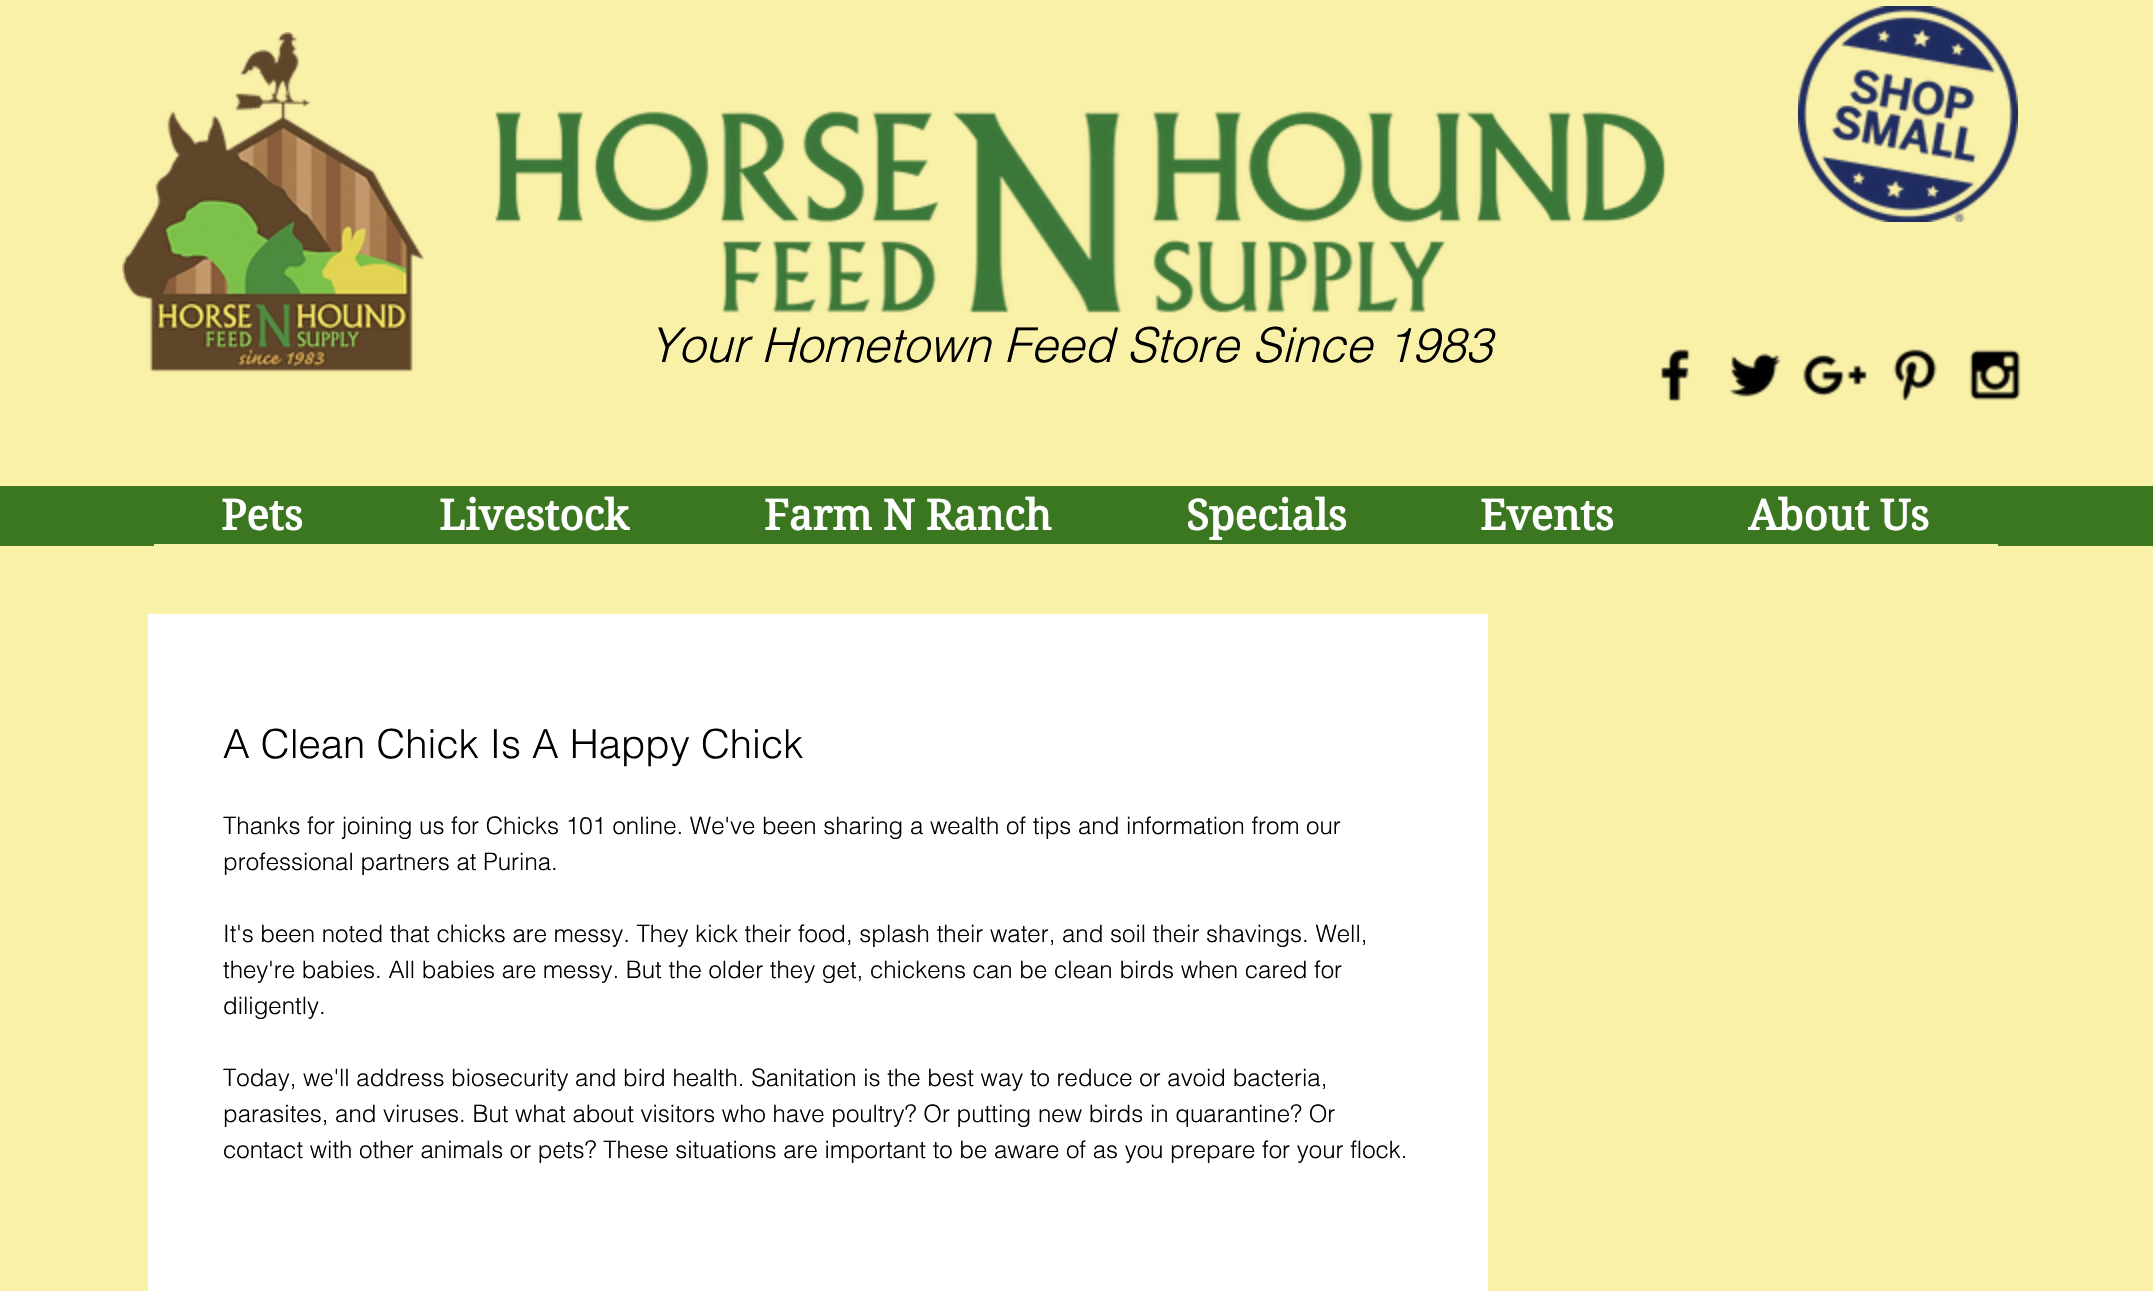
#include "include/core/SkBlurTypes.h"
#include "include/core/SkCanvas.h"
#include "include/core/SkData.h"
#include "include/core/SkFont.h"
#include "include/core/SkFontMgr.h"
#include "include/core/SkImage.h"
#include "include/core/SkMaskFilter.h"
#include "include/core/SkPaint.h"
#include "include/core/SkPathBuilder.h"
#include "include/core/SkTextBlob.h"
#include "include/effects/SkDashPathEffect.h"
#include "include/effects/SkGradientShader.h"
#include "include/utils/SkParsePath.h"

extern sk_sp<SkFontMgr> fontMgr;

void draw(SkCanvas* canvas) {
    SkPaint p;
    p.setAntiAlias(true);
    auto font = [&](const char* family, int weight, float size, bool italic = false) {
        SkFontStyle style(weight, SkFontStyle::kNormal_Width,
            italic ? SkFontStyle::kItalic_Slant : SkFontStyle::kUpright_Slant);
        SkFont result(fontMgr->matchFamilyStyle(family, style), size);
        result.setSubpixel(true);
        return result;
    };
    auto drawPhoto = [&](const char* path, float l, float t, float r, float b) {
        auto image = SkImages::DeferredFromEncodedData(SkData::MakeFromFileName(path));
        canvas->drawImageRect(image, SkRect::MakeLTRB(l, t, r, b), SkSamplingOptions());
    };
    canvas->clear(0xFFFAF1A9);
    drawPhoto("media/1.png", 122, 32, 424, 372);
    drawPhoto("media/2.png", 495, 111, 1666, 313);
    drawPhoto("media/3.png", 1798, 6, 2018, 222);
    auto font1 = font("helvetica", 300, 48, true);
    p.setColor(0xFF000000);
    canvas->drawString("Your Hometown Feed Store Since 1983", 649, 362, font1, p);
    drawPhoto("media/4.png", 1660, 349, 1691, 402);
    drawPhoto("media/5.png", 1729, 353, 1781, 397);
    drawPhoto("media/6.png", 1803, 354, 1867, 397);
    drawPhoto("media/7.png", 1893, 349, 1937, 401);
    drawPhoto("media/8.png", 1969, 349, 2021, 401);
    p.setColor(0xFF3B7620);
    canvas->drawRect(SkRect::MakeLTRB(0, 486, 2153, 546), p);
    auto font2 = font("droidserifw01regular", 700, 42);
    p.setColor(0xFFFFFFFF);
    {
        const struct { const char* s; float x, y; } items[] = {
            {"Pets", 221, 530},
            {"Livestock", 439, 530},
            {"Farm N Ranch", 764, 530},
            {"Specials", 1186, 530},
            {"Events", 1480, 530},
            {"About Us", 1748, 530},
        };
        for (auto [s, x, y] : items) {
            canvas->drawString(s, x, y, font2, p);
        }
    }
    p.setColor(0xFFFAF1A9);
    canvas->drawRect(SkRect::MakeLTRB(154, 544, 1998, 546), p);
    p.setColor(0xFFFFFFFF);
    canvas->drawRect(SkRect::MakeLTRB(148, 614, 1488, 1291), p);
    auto font3 = font("helvetica", 300, 40);
    p.setColor(0xFF000000);
    canvas->drawString("A Clean Chick Is A Happy Chick", 223, 758, font3, p);
    auto font4 = font("helvetica", 300, 24);
    {
        const struct { const char* s; float x, y; } items[] = {
            {"Thanks for joining us for Chicks 101 online. We've been sharing a wealth of tips and information from our", 223, 834},
            {"professional partners at Purina.", 223, 870},
            {"It's been noted that chicks are messy. They kick their food, splash their water, and soil their shavings. Well,", 223, 942},
            {"they're babies. All babies are messy. But the older they get, chickens can be clean birds when cared for", 223, 978},
            {"diligently.", 223, 1014},
            {"Today, we'll address biosecurity and bird health. Sanitation is the best way to reduce or avoid bacteria,", 223, 1086},
            {"parasites, and viruses. But what about visitors who have poultry? Or putting new birds in quarantine? Or", 223, 1122},
            {"contact with other animals or pets? These situations are important to be aware of as you prepare for your flock.", 223, 1158},
        };
        for (auto [s, x, y] : items) {
            canvas->drawString(s, x, y, font4, p);
        }
    }
}
